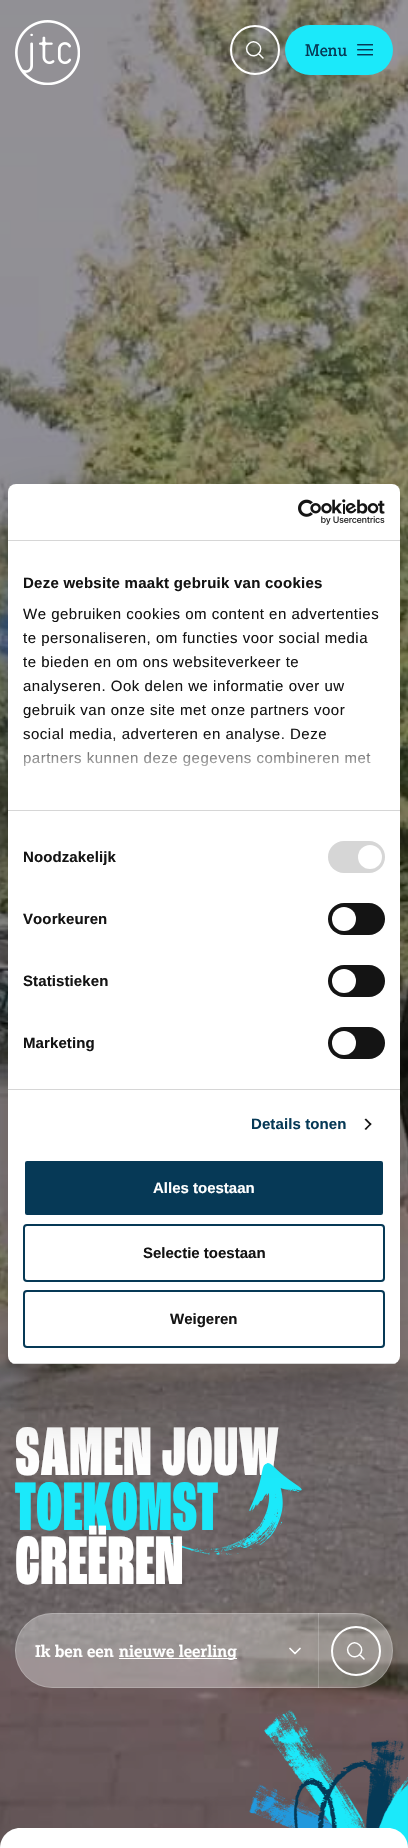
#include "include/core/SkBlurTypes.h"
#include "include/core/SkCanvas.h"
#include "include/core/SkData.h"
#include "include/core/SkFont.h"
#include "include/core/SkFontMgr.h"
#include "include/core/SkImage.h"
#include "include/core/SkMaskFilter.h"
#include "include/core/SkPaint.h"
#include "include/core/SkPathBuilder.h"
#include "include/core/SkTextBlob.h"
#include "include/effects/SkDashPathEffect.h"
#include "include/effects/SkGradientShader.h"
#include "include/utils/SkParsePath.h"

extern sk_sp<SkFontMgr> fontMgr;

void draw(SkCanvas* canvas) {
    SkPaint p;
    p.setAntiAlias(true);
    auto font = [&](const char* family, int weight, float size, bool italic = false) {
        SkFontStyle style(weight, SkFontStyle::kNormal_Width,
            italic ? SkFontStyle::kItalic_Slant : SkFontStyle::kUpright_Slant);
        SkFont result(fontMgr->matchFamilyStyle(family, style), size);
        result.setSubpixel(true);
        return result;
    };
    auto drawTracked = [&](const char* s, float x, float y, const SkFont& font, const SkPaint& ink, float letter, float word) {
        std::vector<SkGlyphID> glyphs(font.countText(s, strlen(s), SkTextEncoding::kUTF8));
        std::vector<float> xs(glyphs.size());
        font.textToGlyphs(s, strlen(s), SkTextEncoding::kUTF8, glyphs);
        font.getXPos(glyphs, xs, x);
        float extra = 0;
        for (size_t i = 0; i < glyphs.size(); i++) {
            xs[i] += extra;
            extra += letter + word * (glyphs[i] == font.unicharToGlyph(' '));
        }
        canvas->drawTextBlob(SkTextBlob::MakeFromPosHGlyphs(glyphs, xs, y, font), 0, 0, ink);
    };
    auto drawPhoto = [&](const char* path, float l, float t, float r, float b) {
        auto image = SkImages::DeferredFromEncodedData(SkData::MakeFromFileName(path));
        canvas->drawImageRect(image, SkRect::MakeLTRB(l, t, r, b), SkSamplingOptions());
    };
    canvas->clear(0xFFFFFFFF);
    drawPhoto("media/4.png", 0, 0, 408, 1848);
    drawPhoto("media/1.png", 15, 20, 80, 85);
    p.setStyle(SkPaint::kStroke_Style);
    p.setStrokeWidth(1.5f);
    p.setStrokeCap(SkPaint::kRound_Cap);
    p.setStrokeJoin(SkPaint::kRound_Join);
    p.setColor(0xFFFFFFFF);
    canvas->drawPath(SkPathBuilder().moveTo(258.5f, 44).cubicTo(265, 50, 255.5f, 60, 249, 54).cubicTo(242, 47.5f, 252, 37, 258.5f, 44).moveTo(263, 58).lineTo(258.5f, 53.5f).detach(), p);
    p.setStrokeWidth(2);
    p.setStrokeCap(SkPaint::kButt_Cap);
    p.setStrokeJoin(SkPaint::kMiter_Join);
    canvas->drawCircle(255, 50, 24, p);
    p.setStyle(SkPaint::kFill_Style);
    p.setColor(0xFF1BE9FA);
    canvas->drawRoundRect(SkRect::MakeLTRB(285, 25, 393, 75), 25, 25, p);
    auto font1 = font("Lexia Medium", 500, 16);
    p.setColor(0xFF063956);
    canvas->drawString("Menu", 305, 56, font1, p);
    drawPhoto("media/2.png", 357, 44, 373, 56);
    auto font2 = font("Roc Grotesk", 800, 72);
    p.setColor(0xFFFFFFFF);
    canvas->drawString("SAMEN JOUW", 15, 1475, font2, p);
    p.setColor(0xFF1BE9FA);
    canvas->drawString("TOEKOMST", 15, 1530, font2, p);
    drawPhoto("media/5.png", 157, 1463, 302, 1555);
    p.setColor(0x4D000000);
    p.setMaskFilter(SkMaskFilter::MakeBlur(kNormal_SkBlurStyle, 34));
    canvas->drawRoundRect(SkRect::MakeLTRB(8, 516, 400, 1396), 8, 8, p);
    p.setMaskFilter(nullptr);
    p.setColor(0xFFFFFFFF);
    canvas->drawRoundRect(SkRect::MakeLTRB(8, 484, 400, 1364), 8, 8, p);
    p.setColor(0xFFD6D6D6);
    canvas->drawRect(SkRect::MakeLTRB(8, 540, 400, 541), p);
    drawPhoto("media/3.png", 298, 499, 385, 525);
    canvas->drawRect(SkRect::MakeLTRB(8, 810, 400, 811), p);
    auto font3 = font("Liberation Sans", 700, 15);
    p.setColor(0xFF141414);
    drawTracked("Deze website maakt gebruik van cookies", 23, 588, font3, p, 0.25f, 0);
    auto font4 = font("Liberation Sans", 400, 15);
    {
        const struct { const char* s; float x, y; } items[] = {
            {"We gebruiken cookies om content en advertenties", 23, 619},
            {"te personaliseren, om functies voor social media", 23, 643},
            {"te bieden en om ons websiteverkeer te", 23, 667},
            {"analyseren. Ook delen we informatie over uw", 23, 691},
            {"gebruik van onze site met onze partners voor", 23, 715},
            {"social media, adverteren en analyse. Deze", 23, 739},
            {"partners kunnen deze gegevens combineren met", 23, 763},
        };
        for (auto [s, x, y] : items) {
            drawTracked(s, x, y, font4, p, 0.5f, 0);
        }
    }
    {
        const SkColor colors[] = {0xFFFFFFFF, 0xCCFFFFFF, 0x00FFFFFF};
        const float stops[] = {0, 0.5f, 1};
        const SkPoint ends[] = {{198, 810}, {198, 735}};
        p.setShader(SkGradientShader::MakeLinear(ends, colors, stops, 3, SkTileMode::kClamp));
        p.setAlpha(255);
    }
    canvas->drawRect(SkRect::MakeLTRB(23, 736, 371, 767), p);
    p.setShader(nullptr);
    p.setColor(0xFFD6D6D6);
    canvas->drawRect(SkRect::MakeLTRB(8, 1089, 400, 1090), p);
    p.setColor(0xFF141414);
    drawTracked("Noodzakelijk", 23, 862, font3, p, 0.1f, 0);
    p.setColor(0xFFD6D6D6);
    canvas->drawRoundRect(SkRect::MakeLTRB(328, 841, 385, 873), 16, 16, p);
    p.setColor(0xFFFFFFFF);
    canvas->drawCircle(370, 857, 12, p);
    p.setColor(0xFF141414);
    drawTracked("Voorkeuren", 23, 924, font3, p, 0.1f, 0);
    canvas->drawRoundRect(SkRect::MakeLTRB(328, 903, 385, 935), 16, 16, p);
    p.setColor(0xFFFFFFFF);
    canvas->drawCircle(344, 919, 12, p);
    p.setColor(0xFF141414);
    drawTracked("Statistieken", 23, 986, font3, p, 0.1f, 0);
    canvas->drawRoundRect(SkRect::MakeLTRB(328, 965, 385, 997), 16, 16, p);
    p.setColor(0xFFFFFFFF);
    canvas->drawCircle(344, 981, 12, p);
    p.setColor(0xFF141414);
    drawTracked("Marketing", 23, 1048, font3, p, 0.1f, 0);
    canvas->drawRoundRect(SkRect::MakeLTRB(328, 1027, 385, 1059), 16, 16, p);
    p.setColor(0xFFFFFFFF);
    canvas->drawCircle(344, 1043, 12, p);
    p.setColor(0xFF063956);
    drawTracked("Details tonen", 251, 1129, font3, p, 0.1f, 0);
    p.setColor(0xFF141414);
    canvas->drawPath(SkPathBuilder().moveTo(366, 1118.5f).lineTo(371.5f, 1124).lineTo(370.5f, 1125.5f).lineTo(364.5f, 1119.5f).close().detach(), p);
    canvas->drawPath(SkPathBuilder().moveTo(370.5f, 1123).lineTo(371.5f, 1124).lineTo(366, 1130).lineTo(364.5f, 1129).close().detach(), p);
    canvas->save();
    canvas->clipPath(SkPathBuilder().moveTo(16, 484).lineTo(392, 484).cubicTo(396.5f, 484, 400, 487.5f, 400, 492).lineTo(400, 1356).cubicTo(400, 1360.5f, 396.5f, 1364, 392, 1364).lineTo(16, 1364).cubicTo(11.5f, 1364, 8, 1360.5f, 8, 1356).lineTo(8, 492).cubicTo(8, 487.5f, 11.5f, 484, 16, 484).close().detach(), true);
    p.setColor(0xFFD6D6D6);
    canvas->drawRect(SkRect::MakeLTRB(8, 1363, 400, 1364), p);
    canvas->restore();
    p.setColor(0xFF063956);
    canvas->drawRoundRect(SkRect::MakeLTRB(24, 1160, 384, 1216), 3, 3, p);
    p.setStyle(SkPaint::kStroke_Style);
    p.setColor(0xFFFFFFFF);
    canvas->drawRoundRect(SkRect::MakeLTRB(24, 1160, 384, 1216), 3, 3, p);
    p.setStyle(SkPaint::kFill_Style);
    canvas->drawString("Alles toestaan", 153, 1193, font3, p);
    p.setStyle(SkPaint::kStroke_Style);
    p.setColor(0xFF063956);
    canvas->drawRoundRect(SkRect::MakeLTRB(24, 1225, 384, 1281), 3, 3, p);
    p.setStyle(SkPaint::kFill_Style);
    p.setColor(0xFF141414);
    canvas->drawString("Selectie toestaan", 143, 1258, font3, p);
    p.setStyle(SkPaint::kStroke_Style);
    p.setColor(0xFF063956);
    canvas->drawRoundRect(SkRect::MakeLTRB(24, 1291, 384, 1347), 3, 3, p);
    p.setStyle(SkPaint::kFill_Style);
    p.setColor(0xFF141414);
    canvas->drawString("Weigeren", 170, 1324, font3, p);
    p.setColor(0xFFFFFFFF);
    canvas->drawString("CREËREN", 15, 1584, font2, p);
    p.setColor(0x0F504343);
    canvas->drawRect(SkRect::MakeLTRB(35, 1614, 259, 1663), p);
    p.setColor(0x57FFFFFF);
    canvas->drawRoundRect(SkRect::MakeLTRB(15, 1613, 393, 1688), 37.5f, 37.5f, p);
    p.setStyle(SkPaint::kStroke_Style);
    p.setStrokeWidth(1);
    p.setColor(0x33FFFFFF);
    canvas->drawRoundRect(SkRect::MakeLTRB(15.5f, 1613.5f, 392.5f, 1687.5f), 37, 37, p);
    auto font5 = font("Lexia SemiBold", 600, 16);
    p.setStyle(SkPaint::kFill_Style);
    p.setColor(0xFFFFFFFF);
    canvas->drawString("Ik ben een", 35, 1657, font5, p);
    canvas->drawRect(SkRect::MakeLTRB(119, 1658, 237, 1659), p);
    canvas->drawString("nieuwe leerling", 119, 1657, font5, p);
    p.setStyle(SkPaint::kStroke_Style);
    p.setStrokeWidth(1.7f);
    p.setStrokeCap(SkPaint::kRound_Cap);
    p.setStrokeJoin(SkPaint::kRound_Join);
    canvas->drawPath(SkPathBuilder().moveTo(290, 1648.5f).lineTo(295, 1653.5f).lineTo(300, 1648.5f).detach(), p);
    p.setStyle(SkPaint::kFill_Style);
    p.setColor(0x33FFFFFF);
    canvas->drawRect(SkRect::MakeLTRB(318, 1613, 319, 1688), p);
    p.setStyle(SkPaint::kStroke_Style);
    p.setStrokeWidth(1.5f);
    p.setColor(0xFFFFFFFF);
    canvas->drawPath(SkPathBuilder().moveTo(359.5f, 1645).cubicTo(366, 1651, 356.5f, 1661, 350, 1655).cubicTo(343, 1648.5f, 353, 1638, 359.5f, 1645).moveTo(364, 1659).lineTo(359.5f, 1654.5f).detach(), p);
    p.setStrokeWidth(2);
    p.setStrokeCap(SkPaint::kButt_Cap);
    p.setStrokeJoin(SkPaint::kMiter_Join);
    canvas->drawCircle(356, 1651, 24, p);
    drawPhoto("media/6.png", 249, 1709, 408, 1848);
    p.setStyle(SkPaint::kFill_Style);
    canvas->drawPath(SkPathBuilder().moveTo(20, 1828).lineTo(388, 1828).cubicTo(399, 1828, 408, 1837, 408, 1848).lineTo(408, 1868).lineTo(0, 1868).lineTo(0, 1848).cubicTo(0, 1837, 9, 1828, 20, 1828).close().detach(), p);
}
